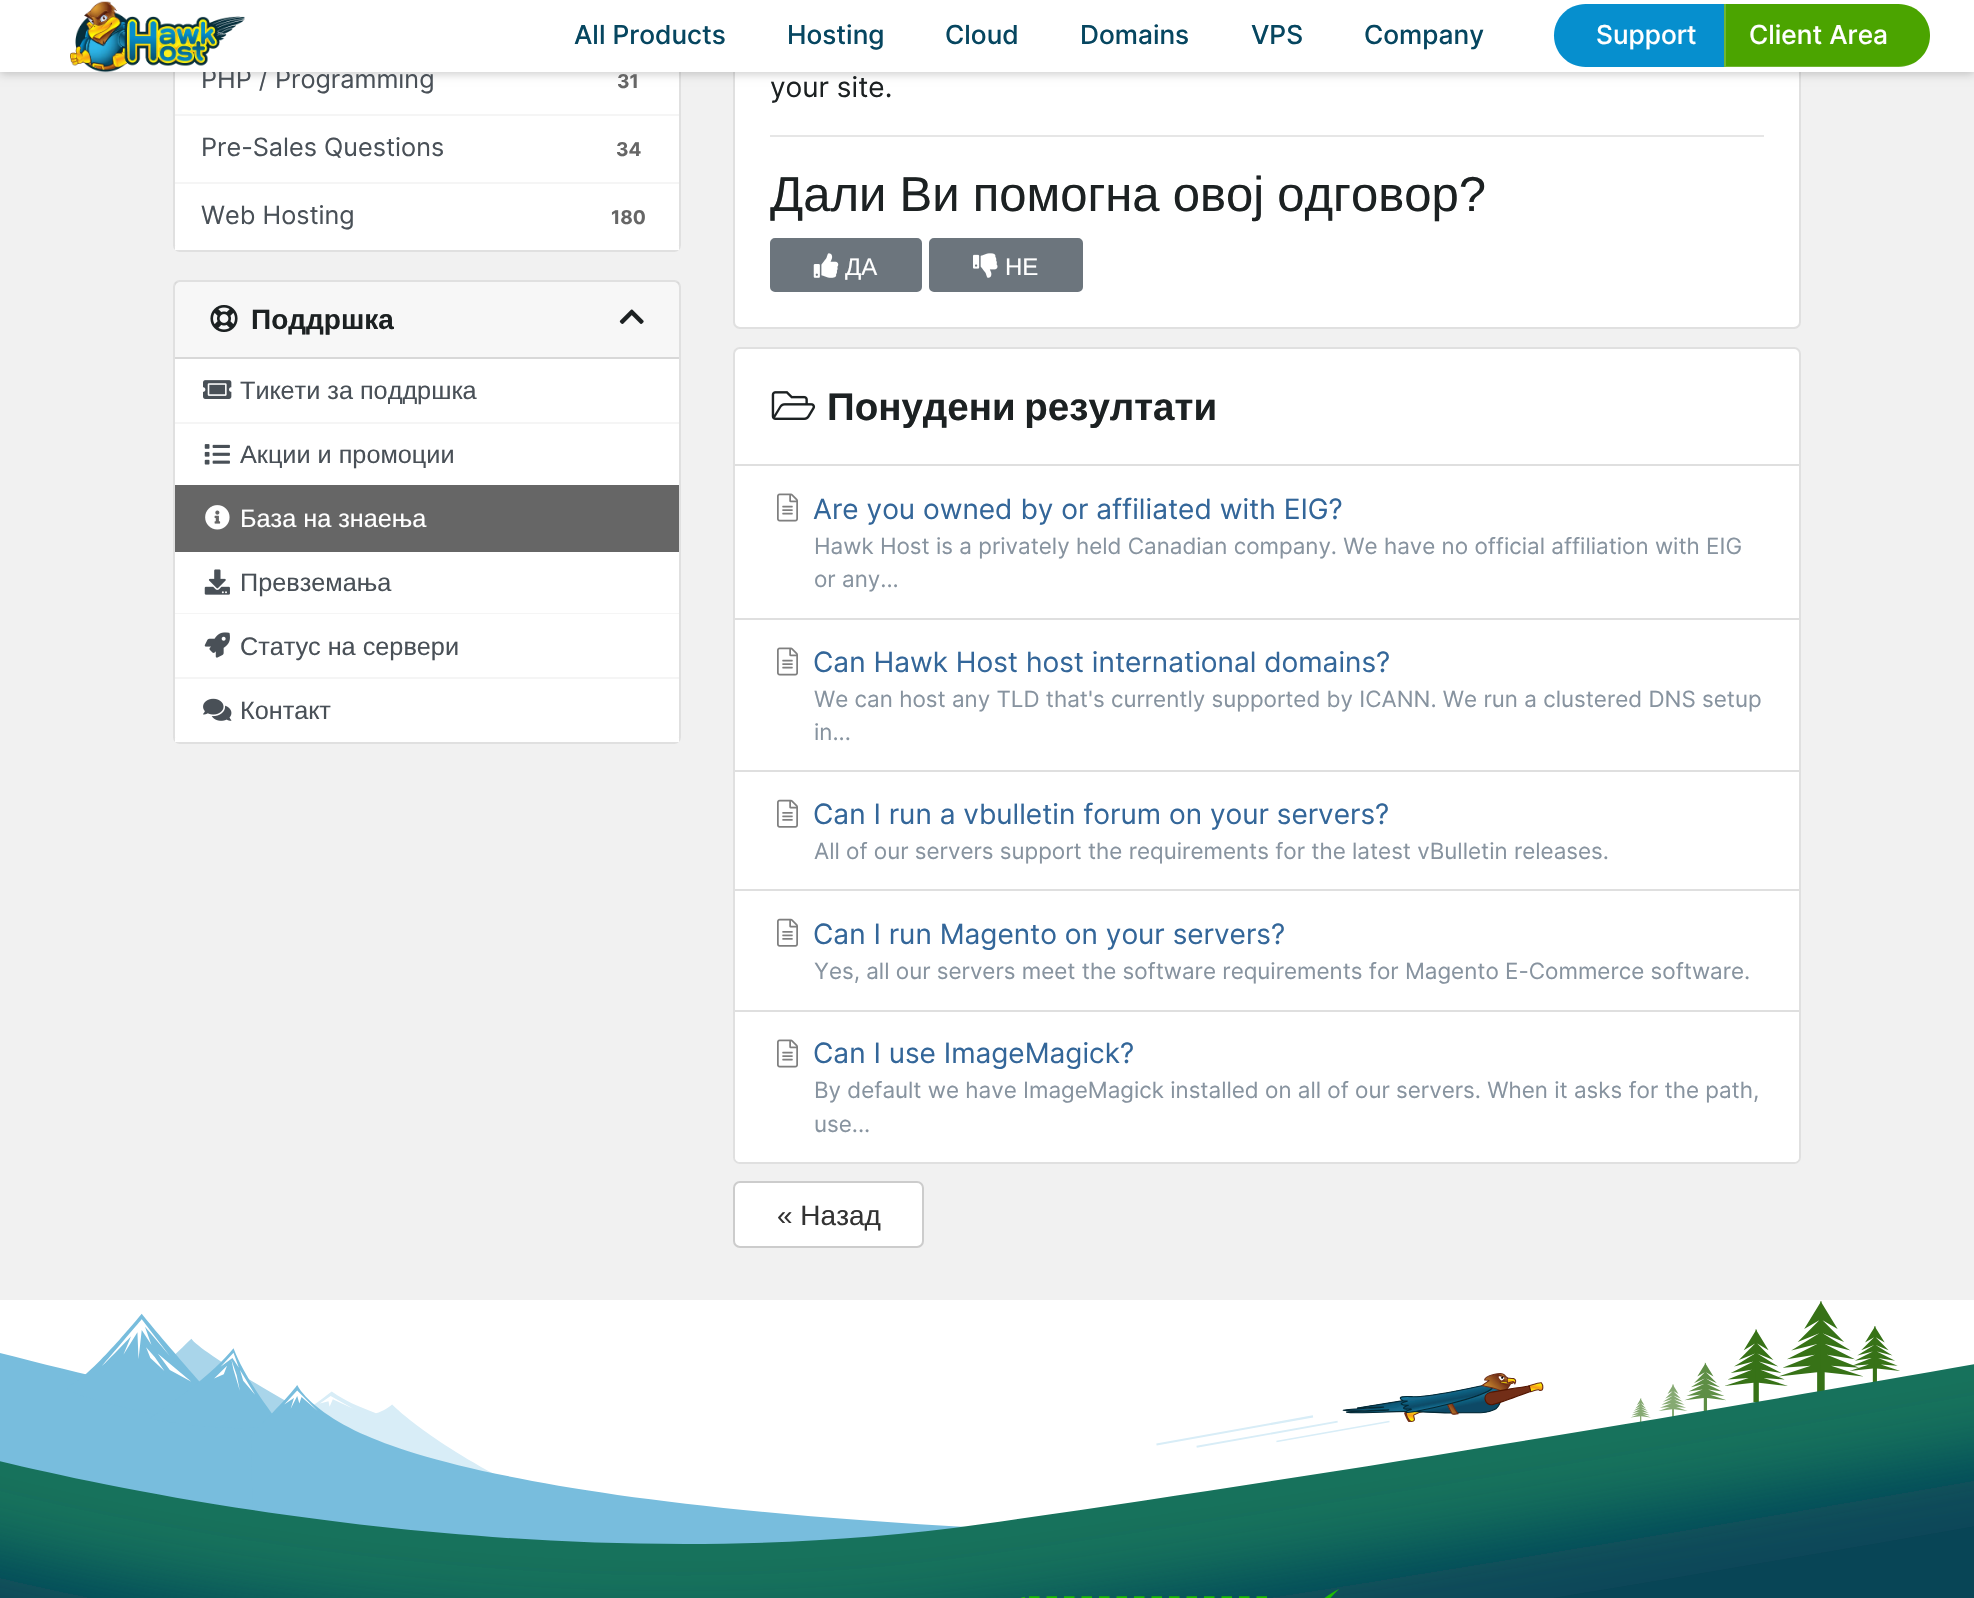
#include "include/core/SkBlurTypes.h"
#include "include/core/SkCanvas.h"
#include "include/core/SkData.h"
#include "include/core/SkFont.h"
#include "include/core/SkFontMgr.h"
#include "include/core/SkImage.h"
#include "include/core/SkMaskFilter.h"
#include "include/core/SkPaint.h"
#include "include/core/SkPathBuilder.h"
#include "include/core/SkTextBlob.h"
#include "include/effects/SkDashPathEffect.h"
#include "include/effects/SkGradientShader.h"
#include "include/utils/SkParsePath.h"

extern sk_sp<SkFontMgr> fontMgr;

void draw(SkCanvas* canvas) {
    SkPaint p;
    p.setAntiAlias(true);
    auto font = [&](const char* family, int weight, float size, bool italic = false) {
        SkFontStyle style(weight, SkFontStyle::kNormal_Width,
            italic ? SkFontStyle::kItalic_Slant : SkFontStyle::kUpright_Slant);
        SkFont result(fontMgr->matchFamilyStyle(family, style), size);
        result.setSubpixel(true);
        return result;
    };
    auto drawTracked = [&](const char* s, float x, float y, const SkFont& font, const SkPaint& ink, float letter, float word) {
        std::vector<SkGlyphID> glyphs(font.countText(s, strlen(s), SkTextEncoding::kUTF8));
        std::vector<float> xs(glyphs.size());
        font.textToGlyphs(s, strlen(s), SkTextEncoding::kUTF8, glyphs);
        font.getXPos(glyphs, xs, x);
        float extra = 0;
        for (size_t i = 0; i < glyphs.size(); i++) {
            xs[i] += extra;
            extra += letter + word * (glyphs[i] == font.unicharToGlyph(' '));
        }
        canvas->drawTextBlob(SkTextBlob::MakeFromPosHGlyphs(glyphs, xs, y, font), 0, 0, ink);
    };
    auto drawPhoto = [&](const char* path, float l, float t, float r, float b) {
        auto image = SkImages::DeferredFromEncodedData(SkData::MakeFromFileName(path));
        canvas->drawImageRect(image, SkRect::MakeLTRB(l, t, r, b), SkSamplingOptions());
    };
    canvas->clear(0xFFF1F1F1);
    p.setColor(0xFFFFFFFF);
    canvas->drawRoundRect(SkRect::MakeLTRB(173, -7, 681, 252), 7, 7, p);
    p.setStyle(SkPaint::kStroke_Style);
    p.setStrokeWidth(2);
    p.setColor(0x1F000000);
    canvas->drawRoundRect(SkRect::MakeLTRB(174, -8, 680, 251), 6, 6, p);
    p.setStyle(SkPaint::kFill_Style);
    p.setColor(0xFFFFFFFF);
    canvas->drawRoundRect(SkRect::MakeLTRB(733, -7, 1801, 329), 7, 7, p);
    p.setStyle(SkPaint::kStroke_Style);
    p.setColor(0x1F000000);
    canvas->drawRoundRect(SkRect::MakeLTRB(734, -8, 1800, 328), 6, 6, p);
    p.setStyle(SkPaint::kFill_Style);
    p.setColor(0x33000000);
    p.setMaskFilter(SkMaskFilter::MakeBlur(kNormal_SkBlurStyle, 4.5f));
    canvas->drawRect(SkRect::MakeLTRB(0, 2, 1974, 74), p);
    p.setMaskFilter(nullptr);
    auto font1 = font("Inter", 400, 25.25f);
    p.setColor(0xFF495057);
    canvas->drawString("PHP / Programming", 201, 88, font1, p);
    p.setColor(0xFFFFFFFF);
    canvas->drawRect(SkRect::MakeLTRB(0, 0, 1974, 72), p);
    drawPhoto("media/1.png", 70, 1, 245, 73);
    auto font2 = font("Inter", 500, 26.25f);
    p.setColor(0xFF064660);
    {
        const struct { const char* s; float x, y; } items[] = {
            {"All Products", 574, 44},
            {"Hosting", 787, 44},
            {"Cloud", 945, 44},
            {"Domains", 1080, 44},
            {"VPS", 1251, 44},
            {"Company", 1364, 44},
        };
        for (auto [s, x, y] : items) {
            canvas->drawString(s, x, y, font2, p);
        }
    }
    p.setColor(0xFF068FCE);
    canvas->drawPath(SkPathBuilder().moveTo(1585.5f, 4).lineTo(1724, 4).lineTo(1724, 67).lineTo(1585.5f, 67).cubicTo(1568, 67, 1554, 53, 1554, 35.5f).cubicTo(1554, 18, 1568, 4, 1585.5f, 4).close().detach(), p);
    p.setColor(0xFFFFFFFF);
    canvas->drawString("Support", 1596, 44, font2, p);
    p.setColor(0xFF4BA400);
    canvas->drawPath(SkPathBuilder().moveTo(1724, 4).lineTo(1898.5f, 4).cubicTo(1916, 4, 1930, 18, 1930, 35.5f).cubicTo(1930, 53, 1916, 67, 1898.5f, 67).lineTo(1724, 67).close().detach(), p);
    p.setColor(0x33FFFFFF);
    canvas->drawPath(SkPathBuilder().moveTo(1724, 4).lineTo(1724, 67).lineTo(1898, 67).cubicTo(1904, 67, 1909, 66, 1914, 63).cubicTo(1910, 65, 1905, 66, 1900, 66).lineTo(1726, 66).lineTo(1726, 4).close().detach(), p);
    p.setColor(0xFFFFFFFF);
    canvas->drawString("Client Area", 1749, 44, font2, p);
    p.setColor(0xFFF5F5F5);
    canvas->drawRect(SkRect::MakeLTRB(175, 114, 679, 116), p);
    auto font3 = font("Inter", 700, 19);
    p.setColor(0xFF666666);
    canvas->drawString("31", 617, 88, font3, p);
    p.setColor(0xFFF5F5F5);
    canvas->drawRect(SkRect::MakeLTRB(175, 182, 679, 184), p);
    p.setColor(0xFF495057);
    canvas->drawString("Pre-Sales Questions", 201, 156, font1, p);
    p.setColor(0xFF666666);
    canvas->drawString("34", 616, 156, font3, p);
    p.setColor(0xFFFFFFFF);
    canvas->drawRect(SkRect::MakeLTRB(175, 246, 679, 250), p);
    p.setColor(0xFF495057);
    canvas->drawString("Web Hosting", 201, 224, font1, p);
    p.setColor(0xFF666666);
    canvas->drawString("180", 611, 224, font3, p);
    p.setColor(0xFFFFFFFF);
    canvas->drawRoundRect(SkRect::MakeLTRB(173, 280, 681, 744), 7, 7, p);
    p.setStyle(SkPaint::kStroke_Style);
    p.setColor(0x1F000000);
    canvas->drawRoundRect(SkRect::MakeLTRB(174, 281, 680, 743), 6, 6, p);
    p.setStyle(SkPaint::kFill_Style);
    p.setColor(0x08000000);
    canvas->drawRect(SkRect::MakeLTRB(175, 282, 679, 357), p);
    p.setColor(0xFFD8D8D8);
    canvas->drawRect(SkRect::MakeLTRB(175, 357, 679, 359), p);
    drawPhoto("media/2.png", 210, 305, 238, 332);
    auto font4 = font("Liberation Sans", 700, 28);
    p.setColor(0xFF1C2122);
    canvas->drawString("Поддршка", 251, 329, font4, p);
    drawPhoto("media/3.png", 619, 309, 644, 324);
    p.setColor(0xFFF5F5F5);
    canvas->drawRect(SkRect::MakeLTRB(175, 422, 679, 424), p);
    drawPhoto("media/4.png", 203, 380, 232, 399);
    auto font5 = font("Liberation Sans", 400, 25.25f);
    p.setColor(0xFF495057);
    canvas->drawString("Тикети за поддршка", 240, 399, font5, p);
    drawPhoto("media/5.png", 204, 444, 230, 465);
    canvas->drawString("Акции и промоции", 240, 463, font5, p);
    p.setColor(0xFF666666);
    canvas->drawRect(SkRect::MakeLTRB(175, 485, 679, 552), p);
    drawPhoto("media/6.png", 205, 505, 230, 530);
    p.setColor(0xFFFFFFFF);
    canvas->drawString("База на знаења", 240, 527, font5, p);
    p.setColor(0xFFF5F5F5);
    canvas->drawRect(SkRect::MakeLTRB(175, 613, 679, 614), p);
    drawPhoto("media/7.png", 204, 569, 230, 595);
    p.setColor(0xFF495057);
    canvas->drawString("Превземања", 240, 591, font5, p);
    p.setColor(0xFFF5F5F5);
    canvas->drawRect(SkRect::MakeLTRB(175, 677, 679, 679), p);
    drawPhoto("media/8.png", 204, 632, 230, 658);
    p.setColor(0xFF495057);
    canvas->drawString("Статус на сервери", 240, 655, font5, p);
    p.setColor(0xFFFFFFFF);
    canvas->drawRect(SkRect::MakeLTRB(175, 738, 679, 742), p);
    drawPhoto("media/9.png", 203, 698, 232, 721);
    p.setColor(0xFF495057);
    canvas->drawString("Контакт", 240, 719, font5, p);
    auto font6 = font("Inter", 400, 28);
    p.setColor(0xFF1C2122);
    canvas->drawString("your site.", 770, 97, font6, p);
    p.setColor(0xFFE6E6E6);
    canvas->drawRect(SkRect::MakeLTRB(770, 135, 1764, 137), p);
    auto font7 = font("Liberation Sans", 400, 49);
    p.setColor(0xFF1C2122);
    drawTracked("Дали Ви помогна овој одговор?", 770, 211, font7, p, 0, -0.5f);
    p.setColor(0xFF6C757D);
    canvas->drawRoundRect(SkRect::MakeLTRB(771, 239, 921, 291), 4, 4, p);
    p.setStyle(SkPaint::kStroke_Style);
    canvas->drawRoundRect(SkRect::MakeLTRB(771, 239, 921, 291), 4, 4, p);
    drawPhoto("media/10.png", 813, 253, 839, 278);
    auto font8 = font("Liberation Sans", 400, 24);
    p.setStyle(SkPaint::kFill_Style);
    p.setColor(0xFFFFFFFF);
    canvas->drawString("ДА", 845, 275, font8, p);
    p.setColor(0xFF6C757D);
    canvas->drawRoundRect(SkRect::MakeLTRB(930, 239, 1082, 291), 4, 4, p);
    p.setStyle(SkPaint::kStroke_Style);
    canvas->drawRoundRect(SkRect::MakeLTRB(930, 239, 1082, 291), 4, 4, p);
    drawPhoto("media/11.png", 973, 253, 998, 278);
    p.setStyle(SkPaint::kFill_Style);
    p.setColor(0xFFFFFFFF);
    canvas->drawString("НЕ", 1005, 275, font8, p);
    canvas->drawRoundRect(SkRect::MakeLTRB(733, 347, 1801, 1164), 7, 7, p);
    p.setStyle(SkPaint::kStroke_Style);
    p.setColor(0x1F000000);
    canvas->drawRoundRect(SkRect::MakeLTRB(734, 348, 1800, 1163), 6, 6, p);
    drawPhoto("media/12.png", 771, 391, 816, 420);
    auto font9 = font("Liberation Sans", 700, 38.5f);
    p.setStyle(SkPaint::kFill_Style);
    p.setColor(0xFF1C2122);
    drawTracked("Понудени резултати", 827, 420, font9, p, 0, -2);
    p.setColor(0xFFDFDFDF);
    canvas->drawRect(SkRect::MakeLTRB(735, 464, 1799, 466), p);
    canvas->drawRect(SkRect::MakeLTRB(735, 618, 1799, 620), p);
    drawPhoto("media/13.png", 777, 493, 798, 522);
    p.setColor(0xFF336699);
    canvas->drawString("Are you owned by or affiliated with EIG?", 813, 519, font6, p);
    auto font10 = font("Inter", 400, 22.4f);
    p.setColor(0xFF87939F);
    canvas->drawString("Hawk Host is a privately held Canadian company. We have no official affiliation with EIG", 814, 554, font10, p);
    canvas->drawString("or any...", 814, 587, font10, p);
    p.setColor(0xFFDFDFDF);
    canvas->drawRect(SkRect::MakeLTRB(735, 770, 1799, 772), p);
    drawPhoto("media/13.png", 777, 647, 798, 676);
    p.setColor(0xFF336699);
    canvas->drawString("Can Hawk Host host international domains?", 813, 672, font6, p);
    p.setColor(0xFF87939F);
    canvas->drawString("We can host any TLD that's currently supported by ICANN. We run a clustered DNS setup", 814, 707, font10, p);
    canvas->drawString("in...", 814, 740, font10, p);
    p.setColor(0xFFDFDFDF);
    canvas->drawRect(SkRect::MakeLTRB(735, 889, 1799, 891), p);
    drawPhoto("media/14.png", 777, 799, 798, 828);
    p.setColor(0xFF336699);
    canvas->drawString("Can I run a vbulletin forum on your servers?", 813, 824, font6, p);
    p.setColor(0xFF87939F);
    canvas->drawString("All of our servers support the requirements for the latest vBulletin releases.", 814, 859, font10, p);
    p.setColor(0xFFDFDFDF);
    canvas->drawRect(SkRect::MakeLTRB(735, 1010, 1799, 1012), p);
    drawPhoto("media/14.png", 777, 918, 798, 947);
    p.setColor(0xFF336699);
    canvas->drawString("Can I run Magento on your servers?", 813, 944, font6, p);
    p.setColor(0xFF87939F);
    canvas->drawString("Yes, all our servers meet the software requirements for Magento E-Commerce software.", 814, 979, font10, p);
    p.setColor(0xFFFFFFFF);
    canvas->drawPath(SkPathBuilder().moveTo(735, 1012).lineTo(1799, 1012).lineTo(1799, 1157).cubicTo(1799, 1160, 1797, 1162, 1794, 1162).lineTo(740, 1162).cubicTo(737, 1162, 735, 1160, 735, 1157).close().detach(), p);
    drawPhoto("media/13.png", 777, 1039, 798, 1068);
    p.setColor(0xFF336699);
    canvas->drawString("Can I use ImageMagick?", 813, 1063, font6, p);
    p.setColor(0xFF87939F);
    canvas->drawString("By default we have ImageMagick installed on all of our servers. When it asks for the path,", 814, 1098, font10, p);
    canvas->drawString("use...", 814, 1132, font10, p);
    p.setColor(0xFFFFFFFF);
    canvas->drawRoundRect(SkRect::MakeLTRB(734, 1182, 923, 1247), 6, 6, p);
    p.setStyle(SkPaint::kStroke_Style);
    p.setColor(0xFFCCCCCC);
    canvas->drawRoundRect(SkRect::MakeLTRB(734, 1182, 923, 1247), 6, 6, p);
    auto font11 = font("Liberation Sans", 400, 28);
    p.setStyle(SkPaint::kFill_Style);
    p.setColor(0xFF333333);
    canvas->drawString("« Назад", 777, 1225, font11, p);
    drawPhoto("media/15.png", 0, 1300, 1974, 1598);
    p.setStyle(SkPaint::kStroke_Style);
    p.setStrokeWidth(3.5f);
    p.setColor(0xFF1BBD00);
    p.setPathEffect(SkDashPathEffect::Make({{10.5f, 7}}, 0));
    canvas->drawPath(SkPathBuilder().moveTo(1029, 1598).lineTo(1267, 1598).cubicTo(1277.5f, 1598, 1286, 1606.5f, 1286, 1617).lineTo(1286, 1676.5f).cubicTo(1286, 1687, 1277.5f, 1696, 1267, 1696).lineTo(1029, 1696).cubicTo(1018.5f, 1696, 1010, 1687, 1010, 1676.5f).lineTo(1010, 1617).cubicTo(1010, 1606.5f, 1018.5f, 1598, 1029, 1598).close().detach(), p);
    p.setPathEffect(nullptr);
    p.setStyle(SkPaint::kFill_Style);
    canvas->drawPath(SkPathBuilder(SkPathFillType::kEvenOdd).moveTo(1257, 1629).cubicTo(1275, 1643, 1282, 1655, 1287, 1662).cubicTo(1299, 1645, 1306, 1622, 1339, 1589).cubicTo(1310, 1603, 1290, 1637, 1286, 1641).cubicTo(1280, 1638, 1272, 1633, 1257, 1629).close().detach(), p);
}
